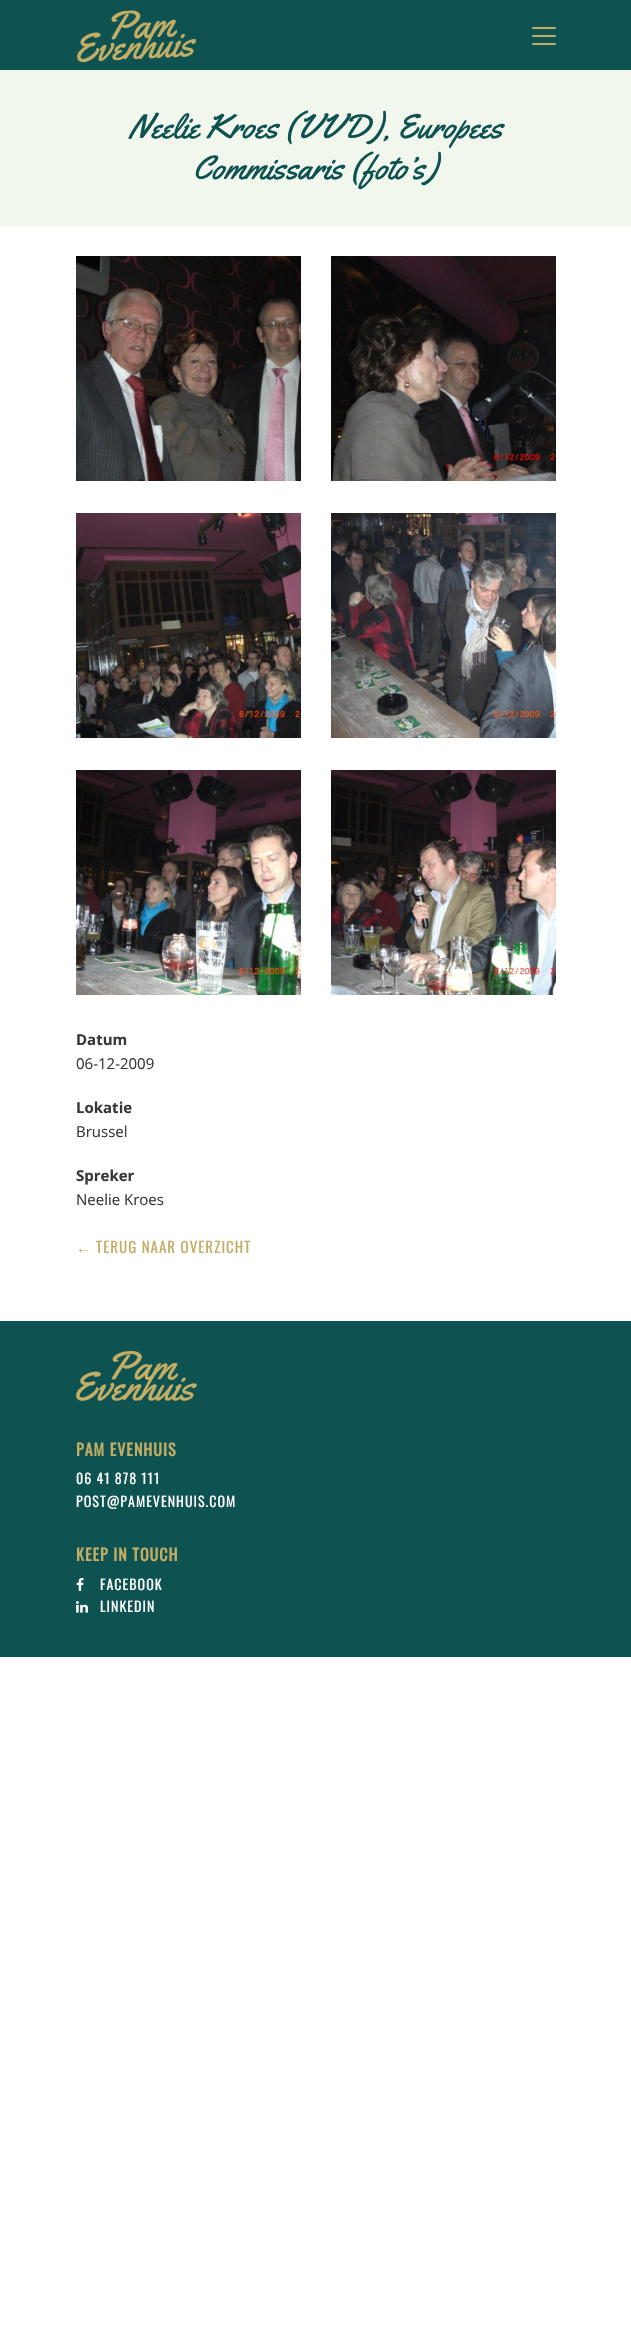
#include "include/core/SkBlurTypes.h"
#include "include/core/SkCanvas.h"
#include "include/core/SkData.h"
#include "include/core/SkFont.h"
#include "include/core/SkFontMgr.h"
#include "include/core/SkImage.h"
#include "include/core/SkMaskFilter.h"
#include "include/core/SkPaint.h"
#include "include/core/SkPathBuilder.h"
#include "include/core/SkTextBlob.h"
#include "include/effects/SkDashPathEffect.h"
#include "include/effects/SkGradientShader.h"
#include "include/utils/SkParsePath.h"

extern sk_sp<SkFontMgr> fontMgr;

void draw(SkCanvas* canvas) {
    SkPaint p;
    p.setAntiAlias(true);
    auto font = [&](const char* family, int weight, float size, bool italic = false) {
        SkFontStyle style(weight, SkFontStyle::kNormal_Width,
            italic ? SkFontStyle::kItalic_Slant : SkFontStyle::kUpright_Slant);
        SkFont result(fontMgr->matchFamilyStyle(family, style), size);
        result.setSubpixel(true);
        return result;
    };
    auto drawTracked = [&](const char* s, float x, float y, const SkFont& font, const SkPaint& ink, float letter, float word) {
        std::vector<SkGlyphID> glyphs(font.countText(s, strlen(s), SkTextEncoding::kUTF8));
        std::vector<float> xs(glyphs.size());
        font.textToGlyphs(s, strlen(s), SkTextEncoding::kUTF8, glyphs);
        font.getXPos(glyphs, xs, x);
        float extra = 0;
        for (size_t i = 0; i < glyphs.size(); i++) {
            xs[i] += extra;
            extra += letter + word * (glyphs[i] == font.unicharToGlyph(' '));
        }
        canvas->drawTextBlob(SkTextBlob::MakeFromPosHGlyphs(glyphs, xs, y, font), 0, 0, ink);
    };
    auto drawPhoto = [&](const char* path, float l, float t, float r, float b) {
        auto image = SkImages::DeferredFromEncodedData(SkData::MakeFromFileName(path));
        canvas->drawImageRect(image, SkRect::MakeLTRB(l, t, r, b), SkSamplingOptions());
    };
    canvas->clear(0xFFFFFFFF);
    p.setColor(0xFF0E5351);
    canvas->drawRect(SkRect::MakeLTRB(0, 0, 631, 70), p);
    drawPhoto("media/1.png", 77, 10, 196, 62);
    p.setColor(0xFFC3AD65);
    canvas->drawRoundRect(SkRect::MakeLTRB(532, 35, 556, 37), 1, 1, p);
    canvas->drawRoundRect(SkRect::MakeLTRB(532, 27, 556, 29), 1, 1, p);
    canvas->drawRoundRect(SkRect::MakeLTRB(532, 43, 556, 45), 1, 1, p);
    p.setColor(0xFFF1F7ED);
    canvas->drawRect(SkRect::MakeLTRB(0, 70, 631, 226), p);
    auto font1 = font("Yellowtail", 400, 34);
    p.setColor(0xFF0E5351);
    canvas->drawString("Neelie Kroes (VVD), Europees", 129, 138, font1, p);
    canvas->drawString("Commissaris (foto’s)", 193, 179, font1, p);
    drawPhoto("media/2.png", 76, 256, 301, 481);
    drawPhoto("media/3.png", 331, 256, 556, 481);
    drawPhoto("media/4.png", 76, 513, 301, 738);
    drawPhoto("media/5.png", 331, 513, 556, 738);
    drawPhoto("media/6.png", 76, 770, 301, 995);
    drawPhoto("media/7.png", 331, 770, 556, 995);
    auto font2 = font("Open Sans", 700, 15);
    p.setColor(0xFF383838);
    canvas->drawString("Datum", 76, 1045, font2, p);
    auto font3 = font("Open Sans", 400, 15);
    canvas->drawString("06-12-2009", 76, 1069, font3, p);
    canvas->drawString("Lokatie", 76, 1113, font2, p);
    canvas->drawString("Brussel", 76, 1137, font3, p);
    canvas->drawString("Spreker", 76, 1181, font2, p);
    canvas->drawString("Neelie Kroes", 76, 1205, font3, p);
    auto font4 = font("Liberation Sans", 400, 15);
    p.setColor(0xFFC3AD65);
    drawTracked("←", 76, 1253, font4, p, 1, 0);
    auto font5 = font("Oswald", 400, 15);
    drawTracked("TERUG NAAR OVERZICHT", 96, 1253, font5, p, 1, 0);
    p.setColor(0xFF0E5351);
    canvas->drawRect(SkRect::MakeLTRB(0, 1321, 631, 1657), p);
    drawPhoto("media/8.png", 76, 1351, 197, 1401);
    auto font6 = font("Oswald", 700, 16);
    p.setColor(0xFFC3AD65);
    drawTracked("PAM EVENHUIS", 76, 1456, font6, p, 1, 0);
    auto font7 = font("Oswald", 400, 14);
    p.setColor(0xFFFFFFFF);
    drawTracked("06 41 878 111", 76, 1484, font7, p, 1, 0);
    drawTracked("POST@PAMEVENHUIS.COM", 76, 1507, font7, p, 1, 0);
    p.setColor(0xFFC3AD65);
    drawTracked("KEEP IN TOUCH", 76, 1561, font6, p, 1, 0);
    drawPhoto("media/9.png", 76, 1578, 84, 1591);
    p.setColor(0xFFFFFFFF);
    drawTracked("FACEBOOK", 100, 1590, font7, p, 1, 0);
    drawPhoto("media/10.png", 76, 1601, 88, 1613);
    drawTracked("LINKEDIN", 100, 1612, font7, p, 1, 0);
}
